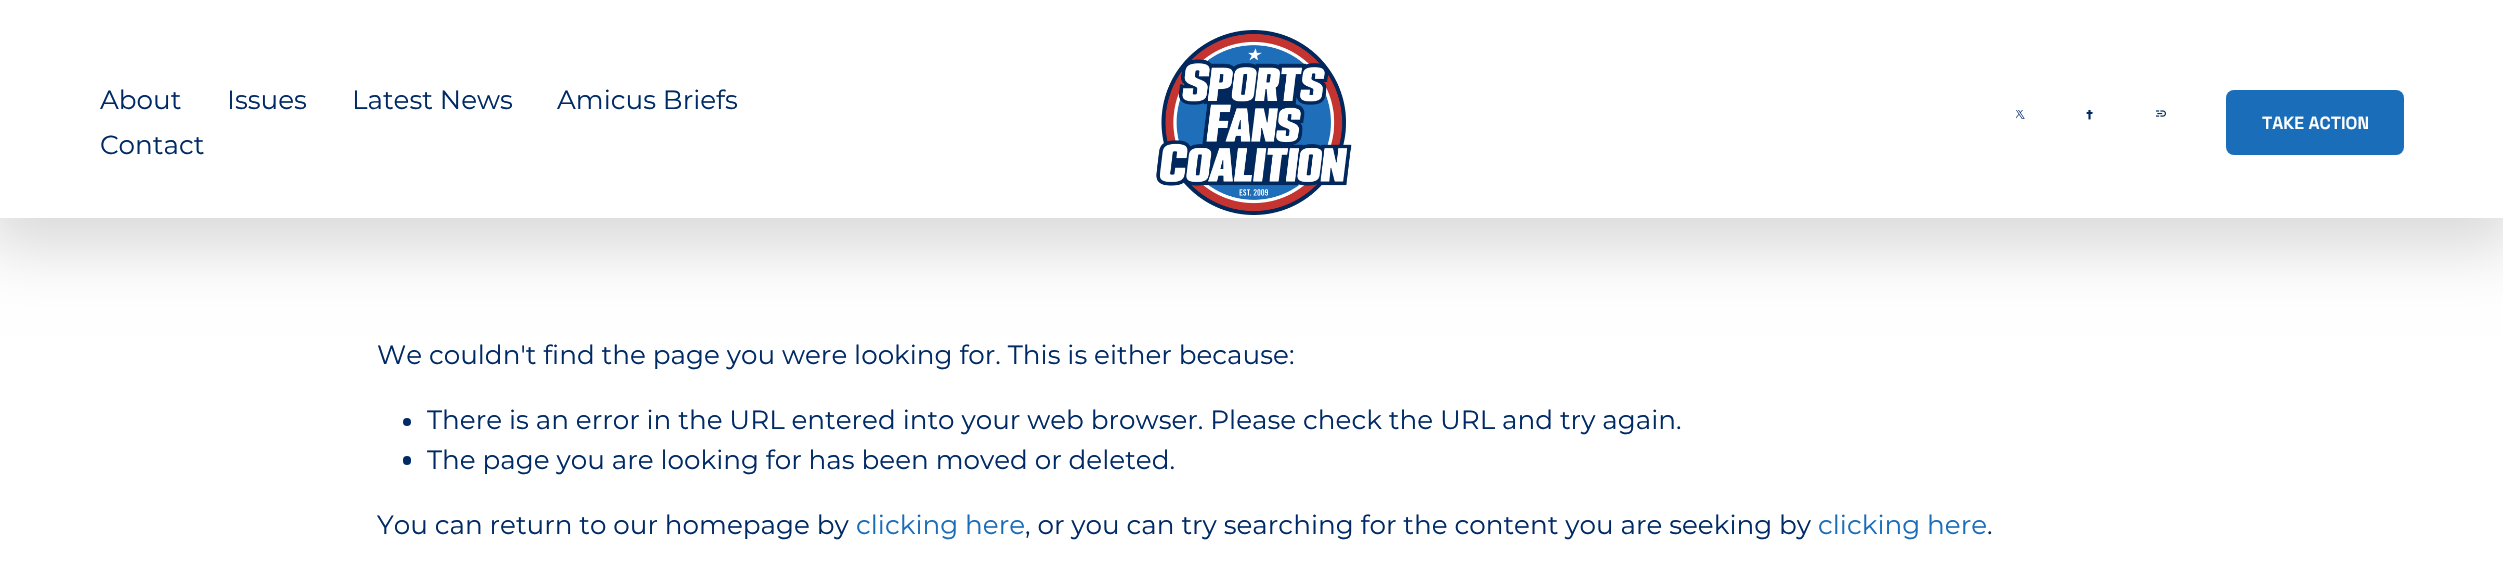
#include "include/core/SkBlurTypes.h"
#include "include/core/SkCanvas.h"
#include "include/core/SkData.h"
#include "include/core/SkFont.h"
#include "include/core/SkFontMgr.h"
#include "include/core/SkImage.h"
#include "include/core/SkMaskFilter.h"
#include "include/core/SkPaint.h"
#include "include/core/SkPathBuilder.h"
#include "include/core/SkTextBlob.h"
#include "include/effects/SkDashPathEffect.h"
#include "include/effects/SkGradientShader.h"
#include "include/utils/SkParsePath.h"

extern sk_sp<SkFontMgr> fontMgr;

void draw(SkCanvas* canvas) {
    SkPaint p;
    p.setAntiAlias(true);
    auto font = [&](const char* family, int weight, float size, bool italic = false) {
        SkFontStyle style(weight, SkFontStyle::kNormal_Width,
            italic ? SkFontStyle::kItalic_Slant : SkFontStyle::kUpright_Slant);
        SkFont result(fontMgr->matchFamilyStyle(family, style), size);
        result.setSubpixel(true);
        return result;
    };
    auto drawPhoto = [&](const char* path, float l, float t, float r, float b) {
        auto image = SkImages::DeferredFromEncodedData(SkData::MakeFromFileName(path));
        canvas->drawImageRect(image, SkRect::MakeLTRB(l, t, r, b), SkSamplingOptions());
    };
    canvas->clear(0xFFFFFFFF);
    canvas->save();
    canvas->clipPath(SkPathBuilder(SkPathFillType::kEvenOdd).moveTo(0, 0).lineTo(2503, 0).lineTo(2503, 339).lineTo(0, 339).close().moveTo(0, 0).lineTo(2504, 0).lineTo(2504, 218).lineTo(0, 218).close().detach(), true);
    p.setColor(0xFFD9D9D9);
    p.setMaskFilter(SkMaskFilter::MakeBlur(kNormal_SkBlurStyle, 30));
    canvas->drawRect(SkRect::MakeLTRB(-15, 0, 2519, 248), p);
    p.setMaskFilter(nullptr);
    canvas->restore();
    auto font1 = font("Montserrat", 400, 26.25f);
    p.setColor(0xFF002A65);
    {
        const struct { const char* s; float x, y; } items[] = {
            {"About", 100, 109},
            {"Issues", 227, 109},
            {"Latest News", 352, 109},
            {"Amicus Briefs", 557, 109},
            {"Contact", 100, 154},
        };
        for (auto [s, x, y] : items) {
            canvas->drawString(s, x, y, font1, p);
        }
    }
    drawPhoto("media/1.png", 1156, 30, 1352, 215);
    drawPhoto("media/2.png", 2016, 110, 2025, 119);
    drawPhoto("media/3.png", 2086, 110, 2093, 120);
    drawPhoto("media/4.png", 2156, 110, 2166, 117);
    p.setColor(0xFF1A6DB8);
    canvas->drawRoundRect(SkRect::MakeLTRB(2226, 90, 2404, 155), 8, 8, p);
    auto font2 = font("Space Grotesk", 600, 17.5f);
    p.setColor(0xFFFFFFFF);
    canvas->drawString("TAKE ACTION", 2262, 129, font2, p);
    p.setColor(0xFF002A65);
    canvas->drawString("We couldn't find the page you were looking for. This is either because:", 377, 364, font1, p);
    canvas->drawCircle(407, 422, 4, p);
    canvas->drawString("There is an error in the URL entered into your web browser. Please check the URL and try again.", 427, 429, font1, p);
    canvas->drawRoundRect(SkRect::MakeLTRB(403, 456, 411, 465), 4, 4, p);
    canvas->drawString("The page you are looking for has been moved or deleted.", 427, 469, font1, p);
    canvas->drawString("You can return to our homepage by", 377, 534, font1, p);
    p.setColor(0xFF1A6DB8);
    canvas->drawString("clicking here", 856, 534, font1, p);
    p.setColor(0xFF002A65);
    canvas->drawString(", or you can try searching for the content you are seeking by", 1025, 534, font1, p);
    p.setColor(0xFF1A6DB8);
    canvas->drawString("clicking here", 1818, 534, font1, p);
    p.setColor(0xFF002A65);
    canvas->drawString(".", 1987, 534, font1, p);
}
